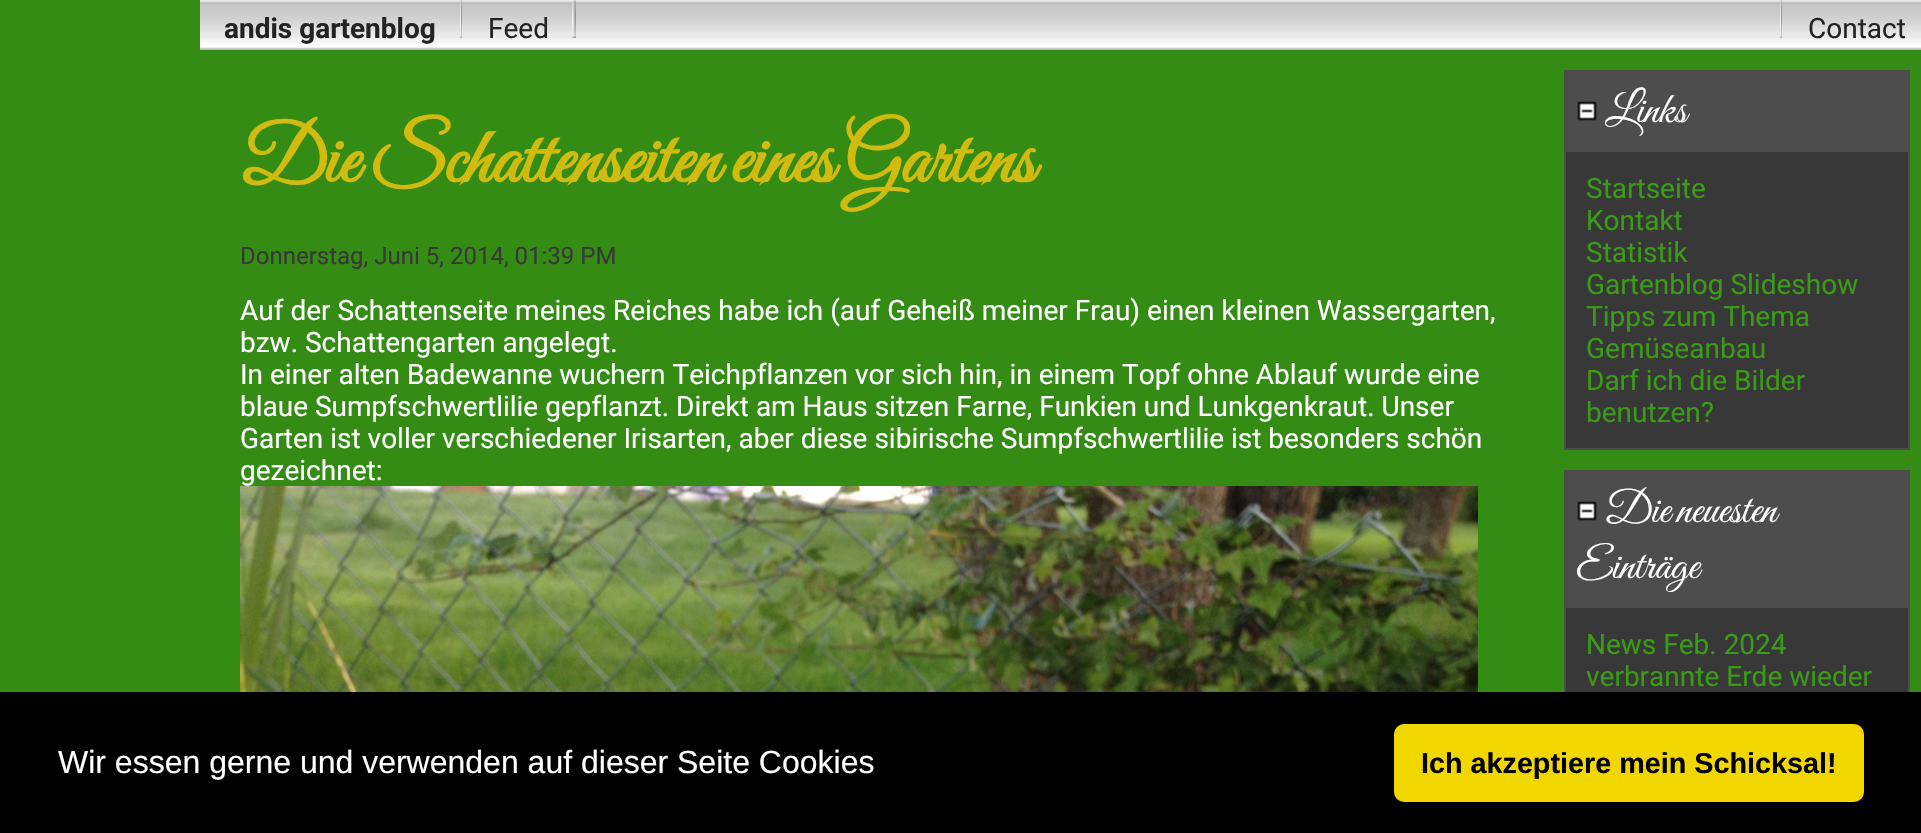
#include "include/core/SkBlurTypes.h"
#include "include/core/SkCanvas.h"
#include "include/core/SkData.h"
#include "include/core/SkFont.h"
#include "include/core/SkFontMgr.h"
#include "include/core/SkImage.h"
#include "include/core/SkMaskFilter.h"
#include "include/core/SkPaint.h"
#include "include/core/SkPathBuilder.h"
#include "include/core/SkTextBlob.h"
#include "include/effects/SkDashPathEffect.h"
#include "include/effects/SkGradientShader.h"
#include "include/utils/SkParsePath.h"

extern sk_sp<SkFontMgr> fontMgr;

void draw(SkCanvas* canvas) {
    SkPaint p;
    p.setAntiAlias(true);
    auto font = [&](const char* family, int weight, float size, bool italic = false) {
        SkFontStyle style(weight, SkFontStyle::kNormal_Width,
            italic ? SkFontStyle::kItalic_Slant : SkFontStyle::kUpright_Slant);
        SkFont result(fontMgr->matchFamilyStyle(family, style), size);
        result.setSubpixel(true);
        return result;
    };
    auto drawTracked = [&](const char* s, float x, float y, const SkFont& font, const SkPaint& ink, float letter, float word) {
        std::vector<SkGlyphID> glyphs(font.countText(s, strlen(s), SkTextEncoding::kUTF8));
        std::vector<float> xs(glyphs.size());
        font.textToGlyphs(s, strlen(s), SkTextEncoding::kUTF8, glyphs);
        font.getXPos(glyphs, xs, x);
        float extra = 0;
        for (size_t i = 0; i < glyphs.size(); i++) {
            xs[i] += extra;
            extra += letter + word * (glyphs[i] == font.unicharToGlyph(' '));
        }
        canvas->drawTextBlob(SkTextBlob::MakeFromPosHGlyphs(glyphs, xs, y, font), 0, 0, ink);
    };
    auto drawPhoto = [&](const char* path, float l, float t, float r, float b) {
        auto image = SkImages::DeferredFromEncodedData(SkData::MakeFromFileName(path));
        canvas->drawImageRect(image, SkRect::MakeLTRB(l, t, r, b), SkSamplingOptions());
    };
    canvas->clear(0xFF348C14);
    drawPhoto("media/1.png", 200, 0, 1921, 50);
    auto font1 = font("Roboto", 700, 28);
    p.setColor(0xFF232323);
    canvas->drawString("andis gartenblog", 224, 38, font1, p);
    drawPhoto("media/2.png", 460, 0, 462, 38);
    auto font2 = font("Roboto", 400, 28);
    canvas->drawString("Feed", 488, 38, font2, p);
    drawPhoto("media/3.png", 572, 0, 576, 38);
    drawPhoto("media/2.png", 1780, 0, 1782, 38);
    canvas->drawString("Contact", 1808, 38, font2, p);
    auto font3 = font("Great Vibes", 700, 80);
    p.setColor(0xFFD1BB11);
    drawTracked("Die Schattenseiten eines Gartens", 240, 182, font3, p, 0, -3);
    auto font4 = font("Roboto", 400, 24);
    p.setColor(0xFF383838);
    canvas->drawString("Donnerstag, Juni 5, 2014, 01:39 PM", 240, 264, font4, p);
    p.setColor(0xFFFFFFFF);
    {
        const struct { const char* s; float x, y; } items[] = {
            {"Auf der Schattenseite meines Reiches habe ich (auf Geheiß meiner Frau) einen kleinen Wassergarten,", 240, 320},
            {"bzw. Schattengarten angelegt.", 240, 352},
            {"In einer alten Badewanne wuchern Teichpflanzen vor sich hin, in einem Topf ohne Ablauf wurde eine", 240, 384},
            {"blaue Sumpfschwertlilie gepflanzt. Direkt am Haus sitzen Farne, Funkien und Lunkgenkraut. Unser", 240, 416},
            {"Garten ist voller verschiedener Irisarten, aber diese sibirische Sumpfschwertlilie ist besonders schön", 240, 448},
            {"gezeichnet:", 240, 480},
        };
        for (auto [s, x, y] : items) {
            canvas->drawString(s, x, y, font2, p);
        }
    }
    drawPhoto("media/4.png", 240, 486, 1478, 692);
    p.setColor(0xFF4D4D4D);
    canvas->drawRect(SkRect::MakeLTRB(1564, 70, 1910, 150), p);
    drawPhoto("media/5.png", 1577, 101, 1597, 121);
    auto font5 = font("Great Vibes", 400, 44);
    p.setColor(0xFFFFFFFF);
    canvas->drawString("Links", 1605, 122, font5, p);
    p.setColor(0xFF383838);
    canvas->drawRect(SkRect::MakeLTRB(1565, 151, 1909, 449), p);
    p.setStyle(SkPaint::kStroke_Style);
    p.setStrokeWidth(2);
    p.setColor(0xFF4D4D4D);
    canvas->drawRect(SkRect::MakeLTRB(1565, 151, 1909, 449), p);
    p.setStyle(SkPaint::kFill_Style);
    p.setColor(0xFF3A9B16);
    {
        const struct { const char* s; float x, y; } items[] = {
            {"Startseite", 1586, 198},
            {"Kontakt", 1586, 230},
            {"Statistik", 1586, 262},
            {"Gartenblog Slideshow", 1586, 294},
            {"Tipps zum Thema", 1586, 326},
            {"Gemüseanbau", 1586, 358},
            {"Darf ich die Bilder", 1586, 390},
            {"benutzen?", 1586, 422},
        };
        for (auto [s, x, y] : items) {
            canvas->drawString(s, x, y, font2, p);
        }
    }
    p.setColor(0xFF4D4D4D);
    canvas->drawRect(SkRect::MakeLTRB(1564, 470, 1910, 606), p);
    drawPhoto("media/5.png", 1577, 501, 1597, 521);
    p.setColor(0xFFFFFFFF);
    drawTracked("Die neuesten", 1605, 522, font5, p, 0, -1);
    canvas->drawString("Einträge", 1576, 578, font5, p);
    p.setColor(0xFF383838);
    canvas->drawRect(SkRect::MakeLTRB(1566, 608, 1908, 692), p);
    p.setStyle(SkPaint::kStroke_Style);
    p.setColor(0xFF4D4D4D);
    canvas->drawRect(SkRect::MakeLTRB(1565, 607, 1909, 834), p);
    p.setStyle(SkPaint::kFill_Style);
    p.setColor(0xFF3A9B16);
    canvas->drawString("News Feb. 2024", 1586, 654, font2, p);
    canvas->drawString("verbrannte Erde wieder", 1586, 686, font2, p);
    p.setColor(0xFF000000);
    canvas->drawRect(SkRect::MakeLTRB(0, 692, 1921, 833), p);
    auto font6 = font("Liberation Sans", 400, 32);
    p.setColor(0xFFFFFFFF);
    canvas->drawString("Wir essen gerne und verwenden auf dieser Seite Cookies", 58, 773, font6, p);
    p.setColor(0xFFF1D600);
    canvas->drawRoundRect(SkRect::MakeLTRB(1394, 724, 1864, 802), 10, 10, p);
    auto font7 = font("Liberation Sans", 700, 28.75f);
    p.setColor(0xFF000000);
    canvas->drawString("Ich akzeptiere mein Schicksal!", 1421, 773, font7, p);
}
